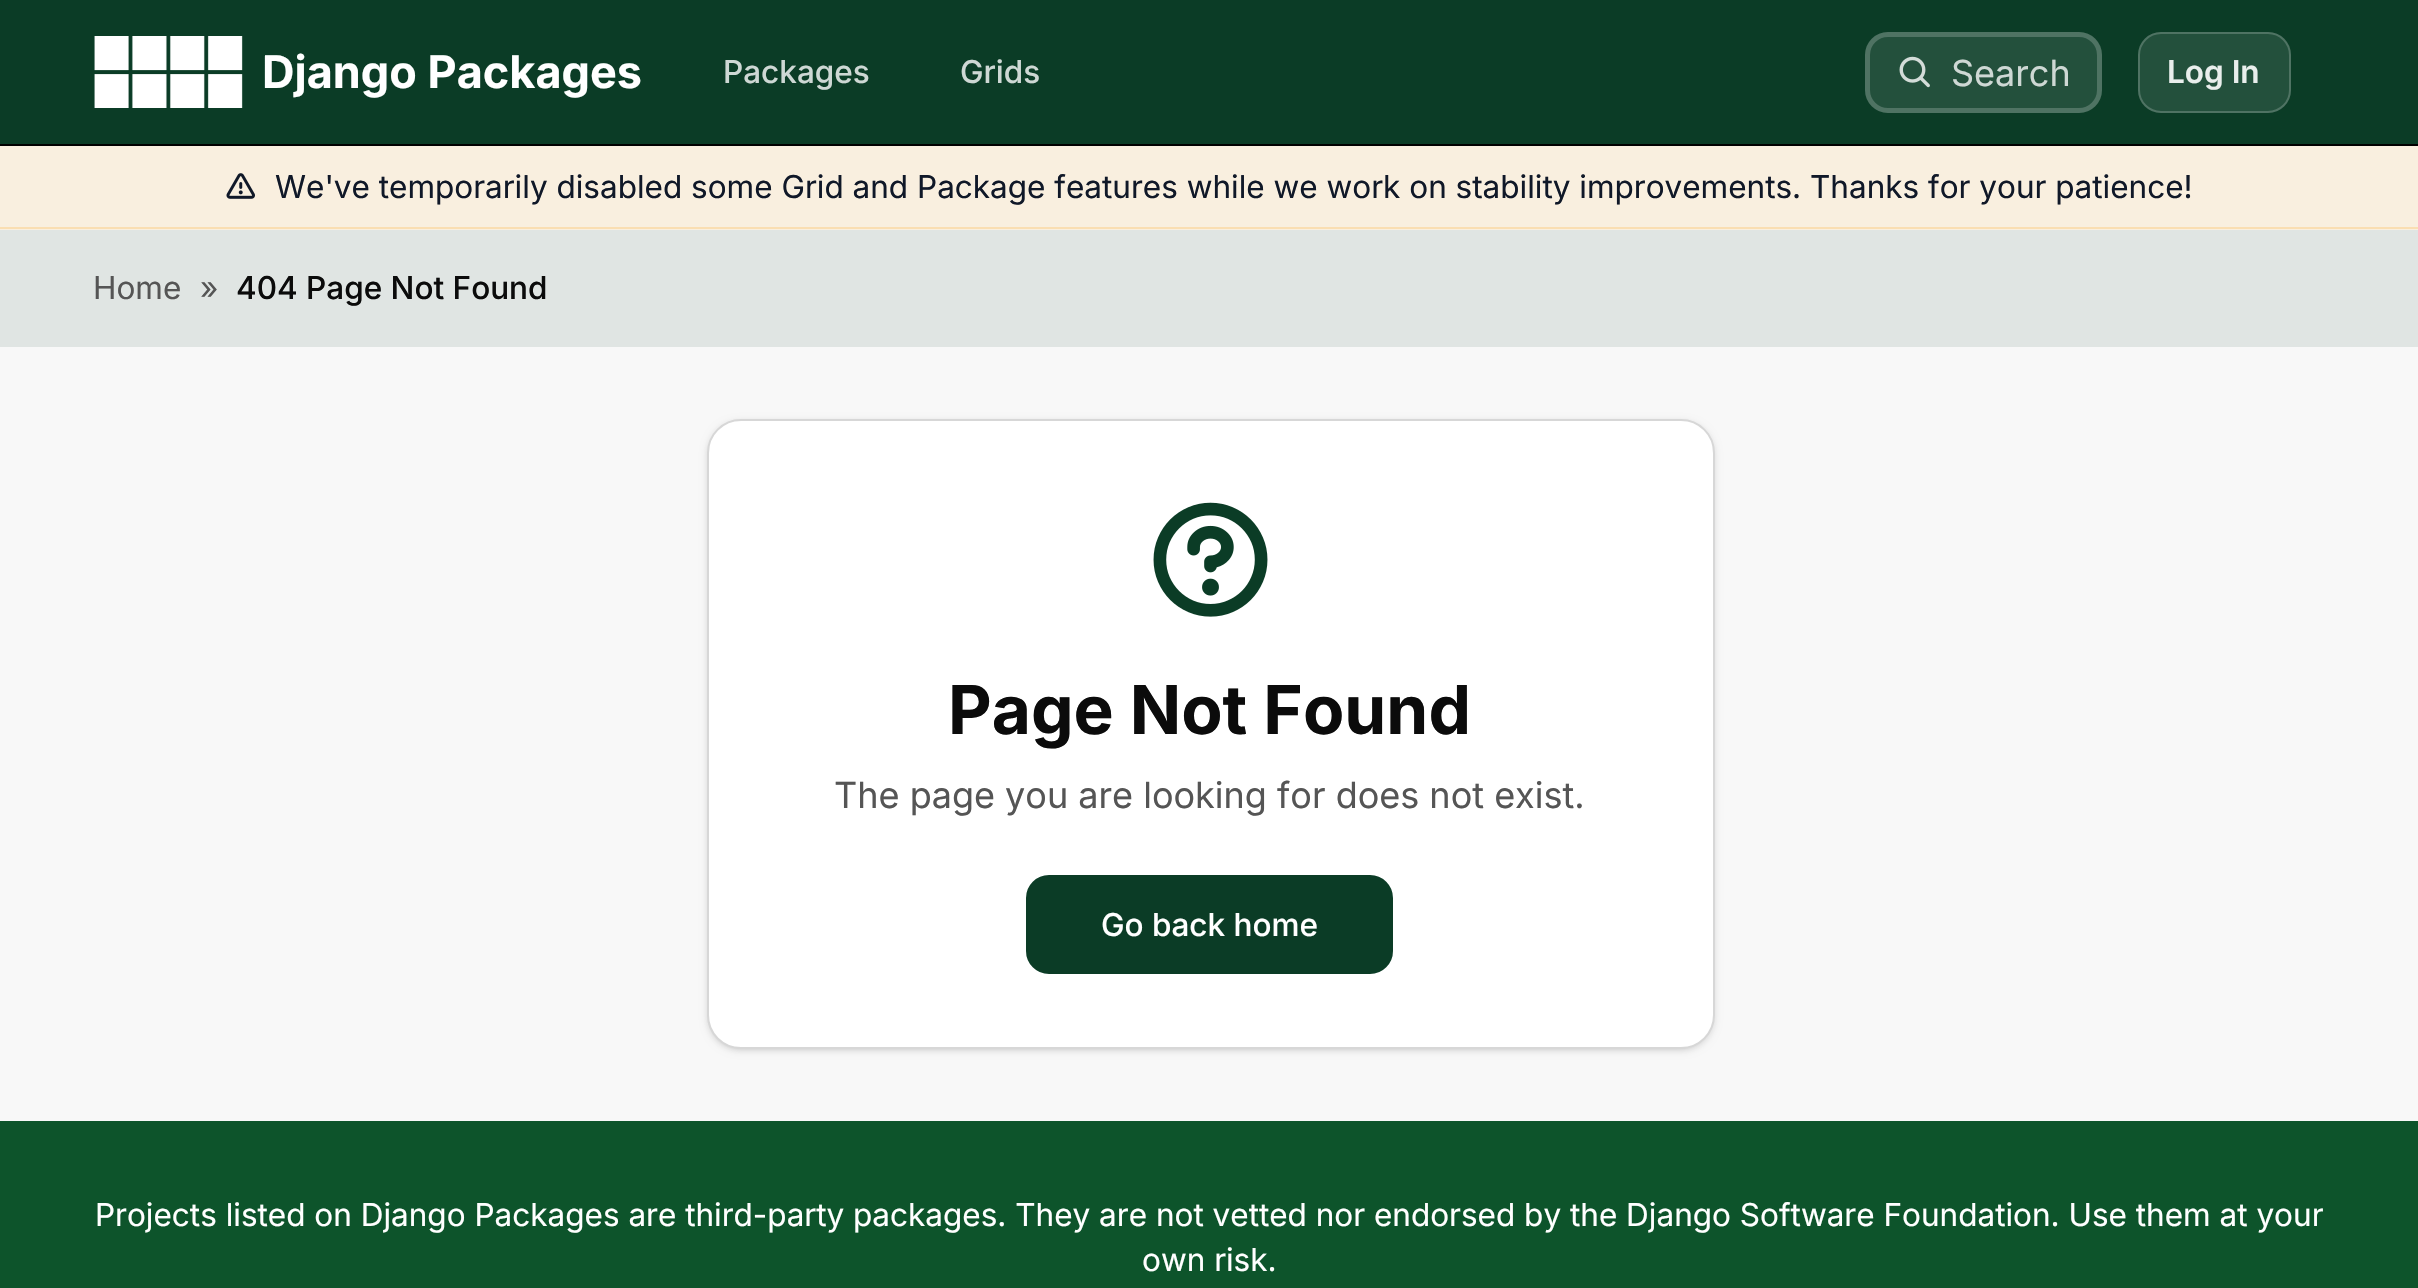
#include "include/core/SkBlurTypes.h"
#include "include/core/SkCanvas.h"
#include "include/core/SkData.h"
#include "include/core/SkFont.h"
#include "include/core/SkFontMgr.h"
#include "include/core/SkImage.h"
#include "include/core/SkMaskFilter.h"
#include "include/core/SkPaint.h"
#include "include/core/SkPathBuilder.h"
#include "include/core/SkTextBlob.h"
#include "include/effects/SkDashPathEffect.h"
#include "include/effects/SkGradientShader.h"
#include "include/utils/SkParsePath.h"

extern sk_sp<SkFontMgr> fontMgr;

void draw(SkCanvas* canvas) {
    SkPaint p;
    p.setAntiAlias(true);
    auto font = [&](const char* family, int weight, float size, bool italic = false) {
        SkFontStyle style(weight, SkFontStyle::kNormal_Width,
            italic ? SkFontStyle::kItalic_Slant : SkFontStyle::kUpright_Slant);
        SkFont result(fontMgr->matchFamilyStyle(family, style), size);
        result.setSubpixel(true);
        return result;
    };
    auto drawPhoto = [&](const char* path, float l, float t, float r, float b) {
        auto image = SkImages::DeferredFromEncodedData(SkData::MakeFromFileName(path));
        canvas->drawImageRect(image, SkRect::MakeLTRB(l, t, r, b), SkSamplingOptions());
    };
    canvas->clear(0xFFF8F8F8);
    p.setColor(0xFF0B3C26);
    canvas->drawRect(SkRect::MakeLTRB(0, 0, 2418, 144), p);
    p.setColor(0xFF000000);
    canvas->drawRect(SkRect::MakeLTRB(0, 144, 2418, 146), p);
    drawPhoto("media/1.png", 94, 36, 243, 108);
    auto font1 = font("Inter", 700, 45);
    p.setColor(0xFFFFFFFF);
    canvas->drawString("Django Packages", 262, 88, font1, p);
    auto font2 = font("Inter", 500, 31.5f);
    p.setColor(0xFFCED8D4);
    canvas->drawString("Packages", 723, 83, font2, p);
    canvas->drawString("Grids", 960, 83, font2, p);
    p.setColor(0xFF23503C);
    canvas->drawRoundRect(SkRect::MakeLTRB(1865, 32, 2102, 113), 23, 23, p);
    p.setStyle(SkPaint::kStroke_Style);
    p.setStrokeWidth(5);
    p.setColor(0x33FFFFFF);
    canvas->drawRoundRect(SkRect::MakeLTRB(1867.5f, 34.5f, 2099.5f, 110.5f), 20.5f, 20.5f, p);
    drawPhoto("media/2.png", 1899, 56, 1930, 88);
    auto font3 = font("Inter", 400, 36);
    p.setStyle(SkPaint::kFill_Style);
    p.setColor(0xFFCED8D4);
    canvas->drawString("Search", 1951, 86, font3, p);
    p.setColor(0xFF23503C);
    canvas->drawRoundRect(SkRect::MakeLTRB(2138, 32, 2291, 113), 23, 23, p);
    p.setStyle(SkPaint::kStroke_Style);
    p.setStrokeWidth(2);
    p.setColor(0x33FFFFFF);
    canvas->drawRoundRect(SkRect::MakeLTRB(2139, 33, 2290, 112), 22, 22, p);
    auto font4 = font("Inter", 600, 31.5f);
    p.setStyle(SkPaint::kFill_Style);
    p.setColor(0xFFE9EEEC);
    canvas->drawString("Log In", 2167, 83, font4, p);
    p.setColor(0xFFF9EFDF);
    canvas->drawRect(SkRect::MakeLTRB(0, 146, 2418, 230), p);
    p.setColor(0xFFFADEB2);
    canvas->drawRect(SkRect::MakeLTRB(0, 227, 2418, 229), p);
    drawPhoto("media/3.png", 226, 173, 255, 199);
    auto font5 = font("Inter", 400, 31.5f);
    p.setColor(0xFF101828);
    canvas->drawString("We've temporarily disabled some Grid and Package features while we work on stability improvements. Thanks for your patience!", 275, 198, font5, p);
    p.setColor(0xFFE0E5E3);
    canvas->drawRect(SkRect::MakeLTRB(0, 230, 2418, 347), p);
    p.setColor(0xFF555555);
    canvas->drawString("Home", 93, 299, font5, p);
    canvas->drawString("»", 200, 299, font5, p);
    p.setColor(0xFF0B0B0B);
    canvas->drawString("404 Page Not Found", 236, 299, font2, p);
    p.setColor(0x1A000000);
    p.setMaskFilter(SkMaskFilter::MakeBlur(kNormal_SkBlurStyle, 2));
    canvas->drawRoundRect(SkRect::MakeLTRB(709, 423, 1712, 1049), 32, 32, p);
    p.setMaskFilter(nullptr);
    p.setMaskFilter(SkMaskFilter::MakeBlur(kNormal_SkBlurStyle, 3.5f));
    canvas->drawRoundRect(SkRect::MakeLTRB(707, 421, 1715, 1051), 34, 34, p);
    p.setMaskFilter(nullptr);
    p.setColor(0xFFFFFFFF);
    canvas->drawRoundRect(SkRect::MakeLTRB(708, 420, 1714, 1048), 33, 33, p);
    p.setStyle(SkPaint::kStroke_Style);
    p.setColor(0xFFD7D7D7);
    canvas->drawRoundRect(SkRect::MakeLTRB(708, 420, 1714, 1048), 33, 33, p);
    drawPhoto("media/4.png", 1153, 502, 1268, 617);
    auto font6 = font("Inter", 700, 67.5f);
    p.setStyle(SkPaint::kFill_Style);
    p.setColor(0xFF0B0B0B);
    canvas->drawString("Page Not Found", 948, 734, font6, p);
    p.setColor(0xFF555555);
    canvas->drawString("The page you are looking for does not exist.", 834, 808, font3, p);
    p.setColor(0xFF0B3C26);
    canvas->drawRoundRect(SkRect::MakeLTRB(1027, 876, 1392, 973), 22, 22, p);
    p.setStyle(SkPaint::kStroke_Style);
    canvas->drawRoundRect(SkRect::MakeLTRB(1027, 876, 1392, 973), 22, 22, p);
    p.setStyle(SkPaint::kFill_Style);
    p.setColor(0xFFFFFFFF);
    canvas->drawString("Go back home", 1101, 936, font2, p);
    p.setColor(0xFF0D542B);
    canvas->drawRect(SkRect::MakeLTRB(0, 1121, 2418, 1288), p);
    p.setColor(0xFFFFFFFF);
    canvas->drawString("Projects listed on Django Packages are third-party packages. They are not vetted nor endorsed by the Django Software Foundation. Use them at your", 95, 1226, font5, p);
    canvas->drawString("own risk.", 1142, 1271, font5, p);
}
